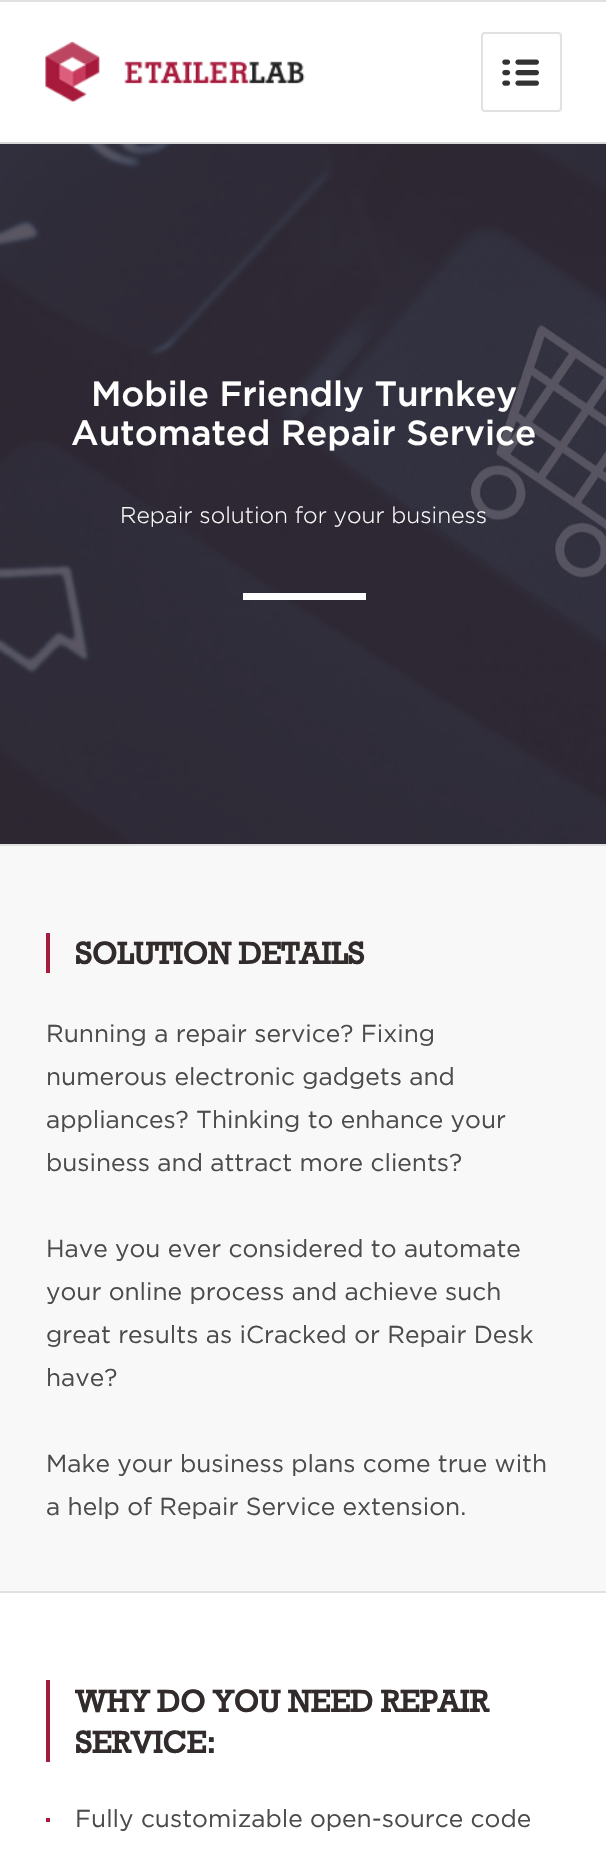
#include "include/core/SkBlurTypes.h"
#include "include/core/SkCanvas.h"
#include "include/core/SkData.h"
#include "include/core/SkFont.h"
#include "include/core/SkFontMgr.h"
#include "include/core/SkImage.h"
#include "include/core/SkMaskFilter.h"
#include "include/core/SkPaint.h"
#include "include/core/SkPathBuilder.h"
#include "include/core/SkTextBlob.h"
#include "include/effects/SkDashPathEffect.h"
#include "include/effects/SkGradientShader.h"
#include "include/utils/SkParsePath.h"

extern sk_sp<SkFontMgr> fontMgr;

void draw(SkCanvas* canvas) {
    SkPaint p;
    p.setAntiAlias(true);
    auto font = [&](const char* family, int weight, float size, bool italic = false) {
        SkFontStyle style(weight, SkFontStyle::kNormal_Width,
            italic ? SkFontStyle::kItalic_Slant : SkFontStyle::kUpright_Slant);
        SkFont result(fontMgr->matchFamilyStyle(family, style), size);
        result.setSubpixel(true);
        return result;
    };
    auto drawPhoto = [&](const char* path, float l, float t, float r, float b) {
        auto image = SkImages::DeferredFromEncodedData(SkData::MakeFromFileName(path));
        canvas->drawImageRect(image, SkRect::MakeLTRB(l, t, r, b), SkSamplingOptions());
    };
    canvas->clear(0xFFFFFFFF);
    p.setColor(0xFFE1E1E1);
    canvas->drawRect(SkRect::MakeLTRB(0, 0, 606, 2), p);
    p.setColor(0xFFD8D8D8);
    canvas->drawRect(SkRect::MakeLTRB(0, 142, 606, 144), p);
    drawPhoto("media/1.png", 45, 42, 305, 102);
    p.setStyle(SkPaint::kStroke_Style);
    p.setStrokeWidth(2);
    p.setColor(0xFFE1E1E1);
    canvas->drawRoundRect(SkRect::MakeLTRB(482, 33, 561, 111), 3, 3, p);
    drawPhoto("media/2.png", 502, 59, 539, 86);
    drawPhoto("media/3.png", 0, 144, 606, 844);
    auto font1 = font("Gotham", 500, 35);
    p.setStyle(SkPaint::kFill_Style);
    p.setColor(0xFFFFFFFF);
    canvas->drawString("Mobile Friendly Turnkey", 91, 406, font1, p);
    canvas->drawString("Automated Repair Service", 71, 445, font1, p);
    auto font2 = font("Gotham", 300, 22.75f);
    canvas->drawString("Repair solution for your business", 120, 523, font2, p);
    {
        const struct { float l, t, r, b; SkColor color; } items[] = {
            {243, 593, 366, 600, 0xFFFFFFFF},
            {0, 846, 606, 1591, 0xFFF8F8F8},
            {0, 844, 606, 846, 0xFFE1E1E1},
            {46, 933, 50, 973, 0xFFA71A3C},
        };
        for (auto [l, t, r, b, color] : items) {
            p.setColor(color);
            canvas->drawRect(SkRect::MakeLTRB(l, t, r, b), p);
        }
    }
    auto font3 = font("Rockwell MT", 700, 31.5f);
    p.setColor(0xFF312B2B);
    canvas->drawString("SOLUTION DETAILS", 75, 964, font3, p);
    auto font4 = font("Gotham", 400, 24.5f);
    p.setColor(0xFF4B4B4B);
    {
        const struct { const char* s; float x, y; } items[] = {
            {"Running a repair service? Fixing", 46, 1042},
            {"numerous electronic gadgets and", 46, 1085},
            {"appliances? Thinking to enhance your", 46, 1128},
            {"business and attract more clients?", 46, 1171},
            {"Have you ever considered to automate", 46, 1257},
            {"your online process and achieve such", 46, 1300},
            {"great results as iCracked or Repair Desk", 46, 1343},
            {"have?", 46, 1386},
            {"Make your business plans come true with", 46, 1472},
            {"a help of Repair Service extension.", 46, 1515},
        };
        for (auto [s, x, y] : items) {
            canvas->drawString(s, x, y, font4, p);
        }
    }
    p.setColor(0xFFE1E1E1);
    canvas->drawRect(SkRect::MakeLTRB(0, 1591, 606, 1593), p);
    p.setColor(0xFFA71A3C);
    canvas->drawRect(SkRect::MakeLTRB(46, 1680, 50, 1762), p);
    p.setColor(0xFF312B2B);
    canvas->drawString("WHY DO YOU NEED REPAIR", 75, 1712, font3, p);
    canvas->drawString("SERVICE:", 75, 1753, font3, p);
    p.setColor(0xFFA71A3C);
    canvas->drawRect(SkRect::MakeLTRB(46, 1818, 50, 1822), p);
    p.setColor(0xFF4B4B4B);
    canvas->drawString("Fully customizable open-source code", 75, 1827, font4, p);
}
